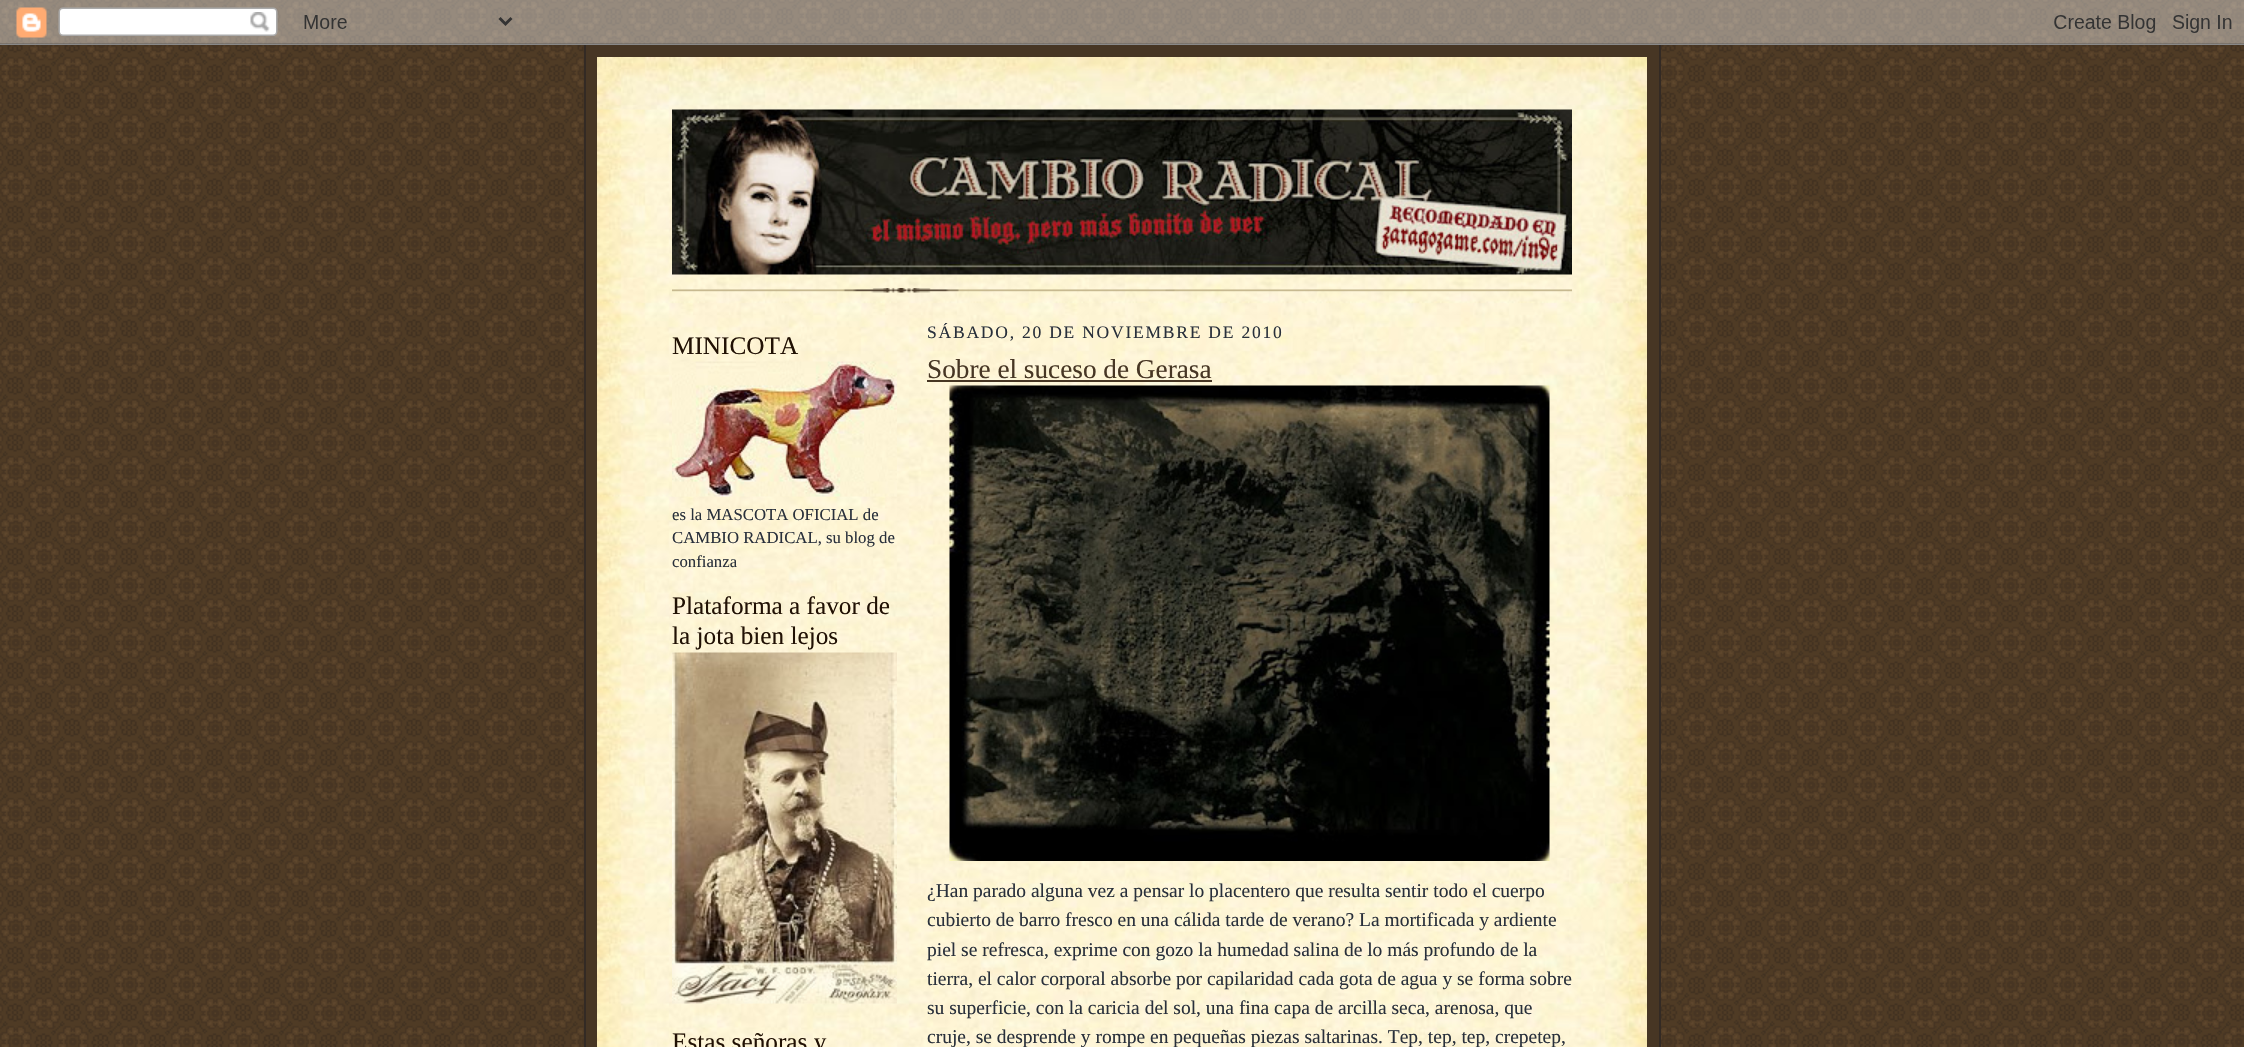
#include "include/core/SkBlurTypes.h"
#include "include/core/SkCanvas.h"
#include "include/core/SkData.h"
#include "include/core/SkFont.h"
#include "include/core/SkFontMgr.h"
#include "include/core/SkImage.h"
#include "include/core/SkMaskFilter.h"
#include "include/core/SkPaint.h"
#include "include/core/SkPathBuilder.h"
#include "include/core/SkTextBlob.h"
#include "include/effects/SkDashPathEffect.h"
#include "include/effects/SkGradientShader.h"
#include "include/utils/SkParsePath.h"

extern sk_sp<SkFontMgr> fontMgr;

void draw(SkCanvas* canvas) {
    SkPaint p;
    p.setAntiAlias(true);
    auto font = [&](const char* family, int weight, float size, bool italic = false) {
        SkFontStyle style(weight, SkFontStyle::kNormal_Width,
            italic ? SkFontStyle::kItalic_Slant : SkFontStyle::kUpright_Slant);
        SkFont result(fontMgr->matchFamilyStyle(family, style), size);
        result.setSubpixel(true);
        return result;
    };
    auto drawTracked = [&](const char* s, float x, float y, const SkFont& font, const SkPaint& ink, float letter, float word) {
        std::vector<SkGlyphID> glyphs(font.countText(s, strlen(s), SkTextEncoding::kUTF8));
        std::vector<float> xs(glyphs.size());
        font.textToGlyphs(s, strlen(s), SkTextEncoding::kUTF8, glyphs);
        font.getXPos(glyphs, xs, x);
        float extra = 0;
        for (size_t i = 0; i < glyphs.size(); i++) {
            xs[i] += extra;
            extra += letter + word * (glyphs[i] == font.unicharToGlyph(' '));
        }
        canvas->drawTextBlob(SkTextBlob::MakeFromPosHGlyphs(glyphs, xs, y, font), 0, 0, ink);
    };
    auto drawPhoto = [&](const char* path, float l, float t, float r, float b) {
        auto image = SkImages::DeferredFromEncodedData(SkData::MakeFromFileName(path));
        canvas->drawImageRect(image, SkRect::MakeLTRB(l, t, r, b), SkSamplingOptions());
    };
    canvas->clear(0xFFFFFFFF);
    drawPhoto("media/1.png", 0, 0, 2244, 1047);
    drawPhoto("media/2.png", 0, 0, 2244, 45);
    {
        const struct { float l, t, r, b; SkColor color; } items[] = {
            {586, 45, 1659, 1047, 0xFF473624},
            {1659, 45, 1661, 1047, 0xFF332A24},
            {584, 45, 586, 1047, 0xFF332A24},
        };
        for (auto [l, t, r, b, color] : items) {
            p.setColor(color);
            canvas->drawRect(SkRect::MakeLTRB(l, t, r, b), p);
        }
    }
    drawPhoto("media/3.png", 597, 57, 1647, 110);
    drawPhoto("media/4.png", 597, 109, 1647, 1047);
    drawPhoto("media/5.png", 672, 288, 1572, 293);
    drawPhoto("media/6.png", 672, 109, 1572, 275);
    auto font1 = font("Liberation Serif", 400, 25.25f);
    p.setColor(0xFF211104);
    canvas->drawString("MINICOTA", 672, 354, font1, p);
    drawPhoto("media/7.png", 672, 361, 897, 497);
    auto font2 = font("Liberation Serif", 400, 16.75f);
    p.setColor(0xFF29303B);
    {
        const struct { const char* s; float x, y; } items[] = {
            {"es la MASCOTA OFICIAL de", 672, 520},
            {"CAMBIO RADICAL, su blog de", 672, 543},
            {"confianza", 672, 567},
        };
        for (auto [s, x, y] : items) {
            canvas->drawString(s, x, y, font2, p);
        }
    }
    p.setColor(0xFF211104);
    canvas->drawString("Plataforma a favor de", 672, 614, font1, p);
    canvas->drawString("la jota bien lejos", 672, 644, font1, p);
    drawPhoto("media/8.png", 672, 652, 897, 1004);
    canvas->drawString("Estas señoras y", 672, 1050, font1, p);
    auto font3 = font("Liberation Serif", 400, 17.55f);
    p.setColor(0xFF29303B);
    drawTracked("SÁBADO, 20 DE NOVIEMBRE DE 2010", 927, 338, font3, p, 1.75f, 0);
    auto font4 = font("Liberation Serif", 400, 27.25f);
    p.setColor(0xFF473624);
    canvas->drawString("Sobre el suceso de Gerasa", 927, 378, font4, p);
    canvas->drawRect(SkRect::MakeLTRB(927, 380, 1212, 382), p);
    drawPhoto("media/9.png", 949, 385, 1550, 861);
    auto font5 = font("Liberation Serif", 400, 19.5f);
    p.setColor(0xFF29303B);
    {
        const struct { const char* s; float x, y; } items[] = {
            {"¿Han parado alguna vez a pensar lo placentero que resulta sentir todo el cuerpo", 927, 897},
            {"cubierto de barro fresco en una cálida tarde de verano? La mortificada y ardiente", 927, 926},
            {"piel se refresca, exprime con gozo la humedad salina de lo más profundo de la", 927, 956},
            {"tierra, el calor corporal absorbe por capilaridad cada gota de agua y se forma sobre", 927, 985},
            {"su superficie, con la caricia del sol, una fina capa de arcilla seca, arenosa, que", 927, 1014},
            {"cruje, se desprende y rompe en pequeñas piezas saltarinas. Tep, tep, tep, crepetep,", 927, 1043},
        };
        for (auto [s, x, y] : items) {
            canvas->drawString(s, x, y, font5, p);
        }
    }
}
